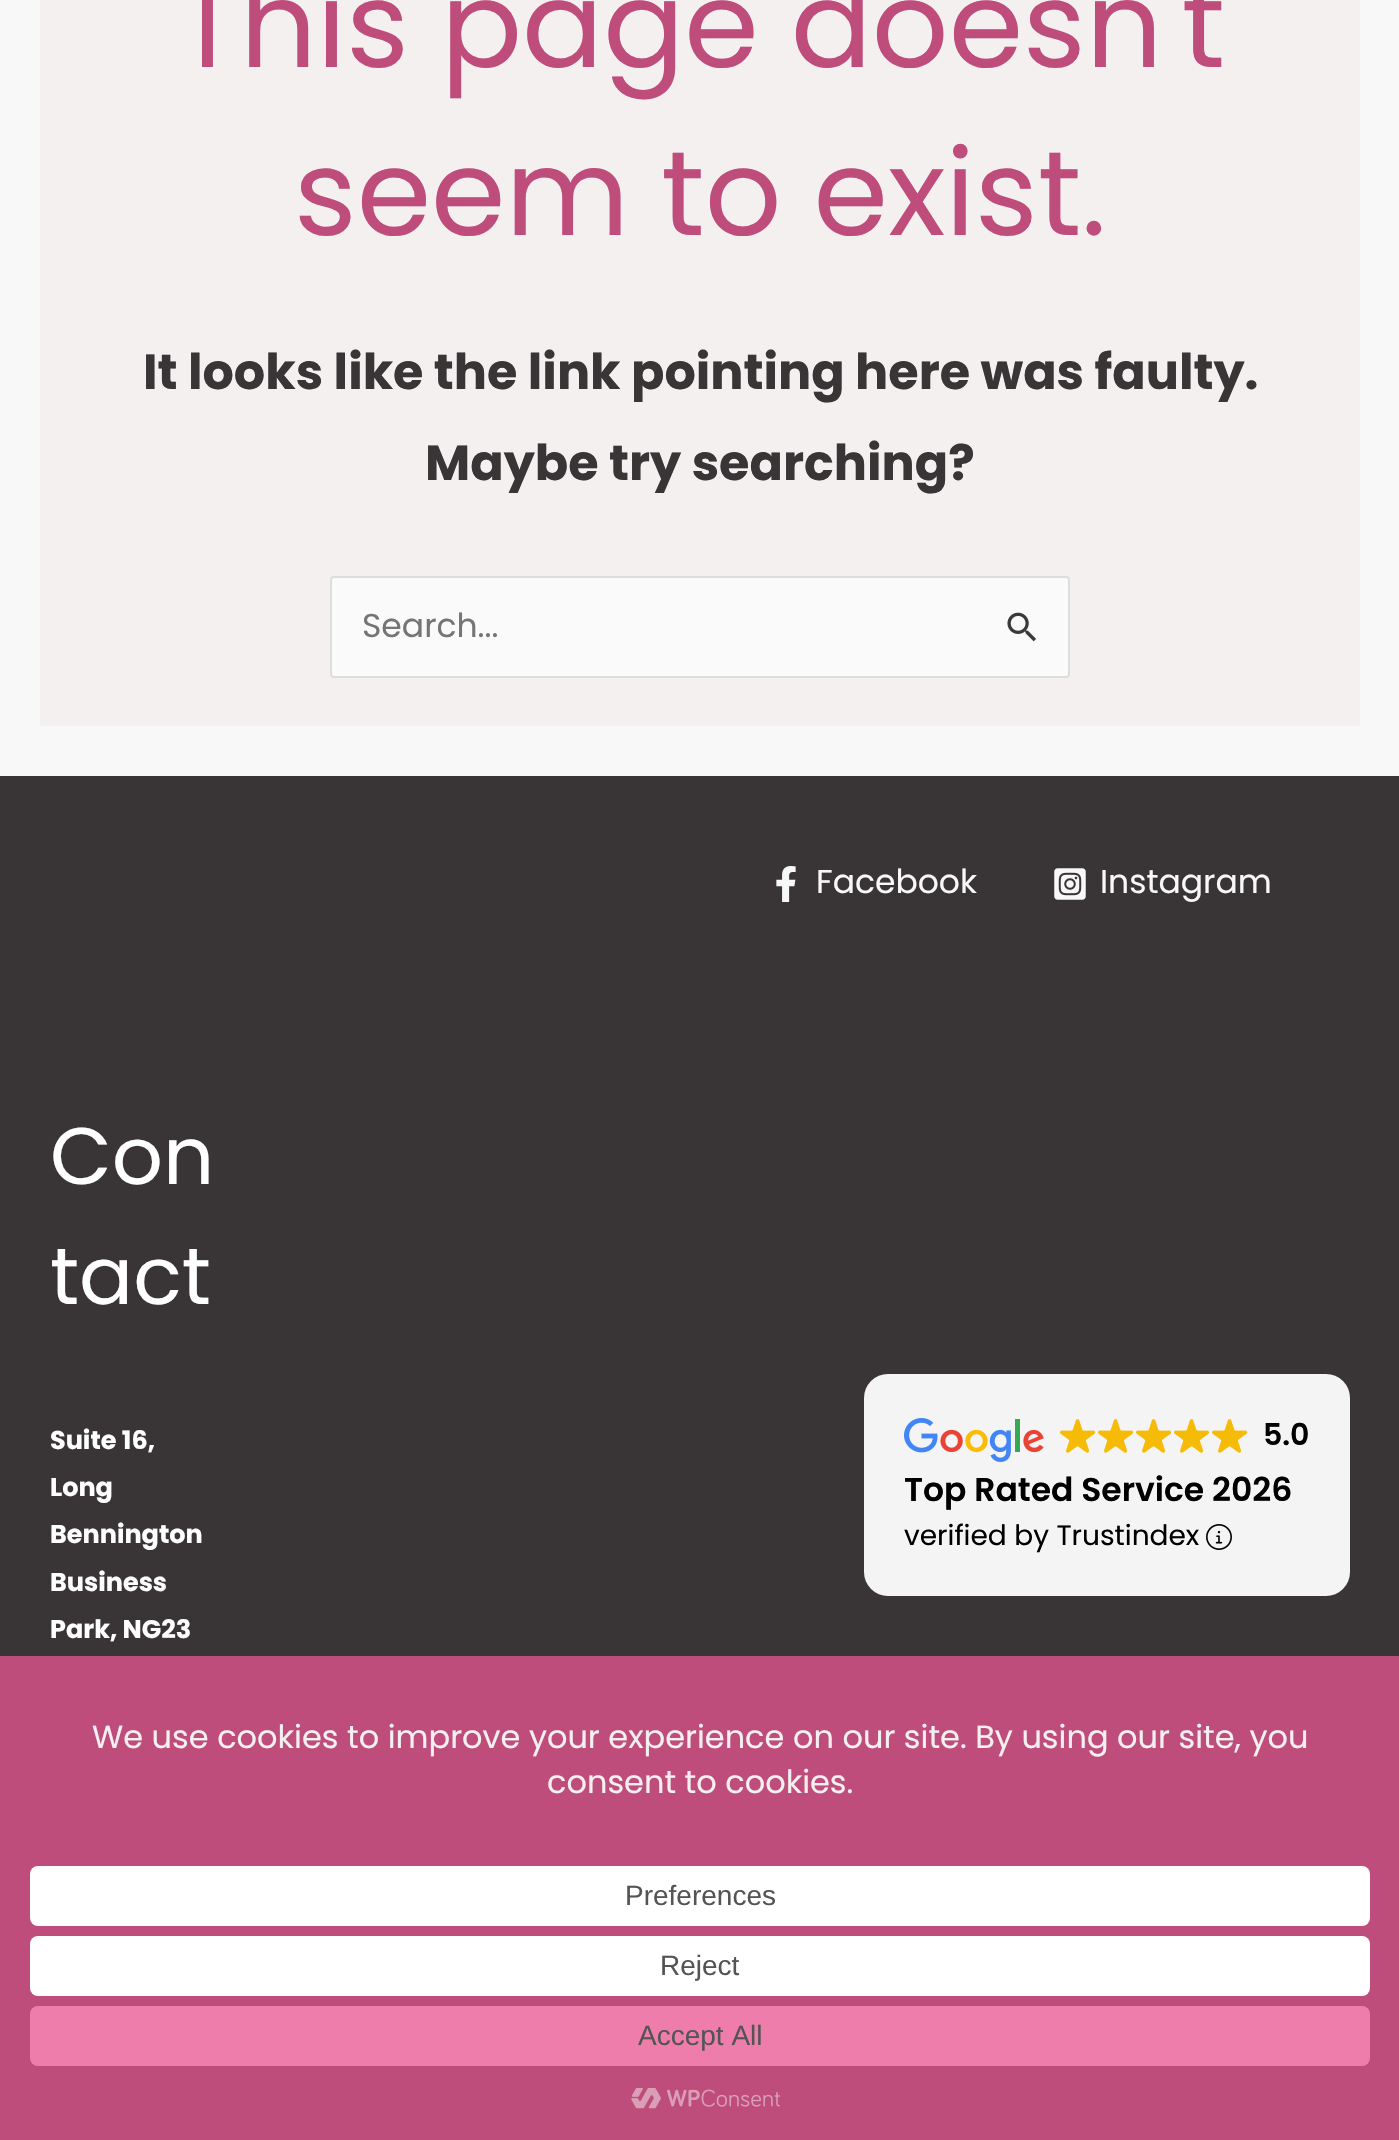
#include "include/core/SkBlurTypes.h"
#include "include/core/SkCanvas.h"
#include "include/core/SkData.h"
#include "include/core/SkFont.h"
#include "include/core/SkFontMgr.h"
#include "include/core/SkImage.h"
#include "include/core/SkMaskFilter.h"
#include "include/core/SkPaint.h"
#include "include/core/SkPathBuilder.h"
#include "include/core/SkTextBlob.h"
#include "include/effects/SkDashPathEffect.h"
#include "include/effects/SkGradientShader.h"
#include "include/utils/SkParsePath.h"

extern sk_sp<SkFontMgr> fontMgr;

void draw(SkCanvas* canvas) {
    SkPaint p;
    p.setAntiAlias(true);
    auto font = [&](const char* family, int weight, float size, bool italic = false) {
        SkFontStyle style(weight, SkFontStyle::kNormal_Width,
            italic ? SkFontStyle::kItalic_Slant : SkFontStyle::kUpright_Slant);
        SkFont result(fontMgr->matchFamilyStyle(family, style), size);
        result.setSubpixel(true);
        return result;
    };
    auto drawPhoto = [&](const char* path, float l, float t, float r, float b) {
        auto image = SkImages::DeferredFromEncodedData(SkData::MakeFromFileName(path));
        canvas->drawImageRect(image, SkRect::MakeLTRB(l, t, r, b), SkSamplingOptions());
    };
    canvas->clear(0xFFF8F8F8);
    p.setColor(0xFFF4F0F0);
    canvas->drawRect(SkRect::MakeLTRB(40, 0, 1360, 726), p);
    auto font1 = font("Poppins", 400, 120);
    p.setColor(0xFFBF4D7B);
    canvas->drawString("This page doesn't", 175, 67, font1, p);
    canvas->drawString("seem to exist.", 294, 235, font1, p);
    auto font2 = font("Poppins", 700, 49.25f);
    p.setColor(0xFF393436);
    canvas->drawString("It looks like the link pointing here was faulty.", 143, 389, font2, p);
    canvas->drawString("Maybe try searching?", 425, 480, font2, p);
    p.setColor(0xFFFAFAFA);
    canvas->drawRoundRect(SkRect::MakeLTRB(331, 577, 1069, 677), 3, 3, p);
    p.setStyle(SkPaint::kStroke_Style);
    p.setStrokeWidth(2);
    p.setColor(0xFFDDDDDD);
    canvas->drawRoundRect(SkRect::MakeLTRB(331, 577, 1069, 677), 3, 3, p);
    auto font3 = font("Poppins", 400, 33);
    p.setStyle(SkPaint::kFill_Style);
    p.setColor(0xFF757575);
    canvas->drawString("Search...", 362, 637, font3, p);
    drawPhoto("media/1.png", 1007, 612, 1036, 642);
    p.setColor(0xFF393436);
    canvas->drawRect(SkRect::MakeLTRB(0, 776, 1399, 1656), p);
    drawPhoto("media/2.png", 776, 866, 796, 902);
    p.setColor(0xFFF8F8F8);
    canvas->drawString("Facebook", 816, 893, font3, p);
    drawPhoto("media/3.png", 1054, 868, 1086, 900);
    canvas->drawString("Instagram", 1100, 893, font3, p);
    auto font4 = font("Poppins", 400, 80);
    p.setColor(0xFFFFFFFF);
    canvas->drawString("Con", 50, 1184, font4, p);
    canvas->drawString("tact", 50, 1304, font4, p);
    auto font5 = font("Poppins", 700, 25.5f);
    {
        const struct { const char* s; float x, y; } items[] = {
            {"Suite 16,", 50, 1449},
            {"Long", 50, 1496},
            {"Bennington", 50, 1543},
            {"Business", 50, 1591},
            {"Park, NG23", 50, 1638},
        };
        for (auto [s, x, y] : items) {
            canvas->drawString(s, x, y, font5, p);
        }
    }
    p.setColor(0xFFF4F4F4);
    canvas->drawRoundRect(SkRect::MakeLTRB(864, 1374, 1350, 1596), 24, 24, p);
    drawPhoto("media/4.png", 904, 1418, 1044, 1462);
    drawPhoto("media/5.png", 1060, 1419, 1096, 1453);
    drawPhoto("media/5.png", 1098, 1419, 1134, 1453);
    drawPhoto("media/5.png", 1136, 1419, 1172, 1453);
    drawPhoto("media/5.png", 1174, 1419, 1210, 1453);
    drawPhoto("media/5.png", 1212, 1419, 1248, 1453);
    auto font6 = font("Poppins", 600, 30);
    p.setColor(0xFF000000);
    canvas->drawString("5.0", 1263, 1445, font6, p);
    auto font7 = font("Poppins", 600, 33);
    canvas->drawString("Top Rated Service 2026", 904, 1501, font7, p);
    auto font8 = font("Poppins", 400, 28);
    canvas->drawString("verified by Trustindex", 904, 1545, font8, p);
    drawPhoto("media/6.png", 1206, 1524, 1232, 1550);
    p.setColor(0xFFBF4D7B);
    canvas->drawRect(SkRect::MakeLTRB(0, 1656, 1399, 2140), p);
    auto font9 = font("Poppins", 400, 32);
    p.setColor(0xFFF4F0F0);
    canvas->drawString("We use cookies to improve your experience on our site. By using our site, you", 92, 1748, font9, p);
    canvas->drawString("consent to cookies.", 547, 1793, font9, p);
    p.setColor(0xFFFFFFFF);
    canvas->drawRoundRect(SkRect::MakeLTRB(30, 1866, 1370, 1926), 8, 8, p);
    auto font10 = font("Liberation Sans", 400, 28);
    p.setColor(0xFF545454);
    canvas->drawString("Preferences", 625, 1905, font10, p);
    p.setColor(0xFFFFFFFF);
    canvas->drawRoundRect(SkRect::MakeLTRB(30, 1936, 1370, 1996), 8, 8, p);
    p.setColor(0xFF545454);
    canvas->drawString("Reject", 660, 1975, font10, p);
    p.setColor(0xFFEF7DAB);
    canvas->drawRoundRect(SkRect::MakeLTRB(30, 2006, 1370, 2066), 8, 8, p);
    p.setColor(0xFF545454);
    canvas->drawString("Accept All", 638, 2045, font10, p);
    drawPhoto("media/7.png", 631, 2088, 780, 2109);
}
